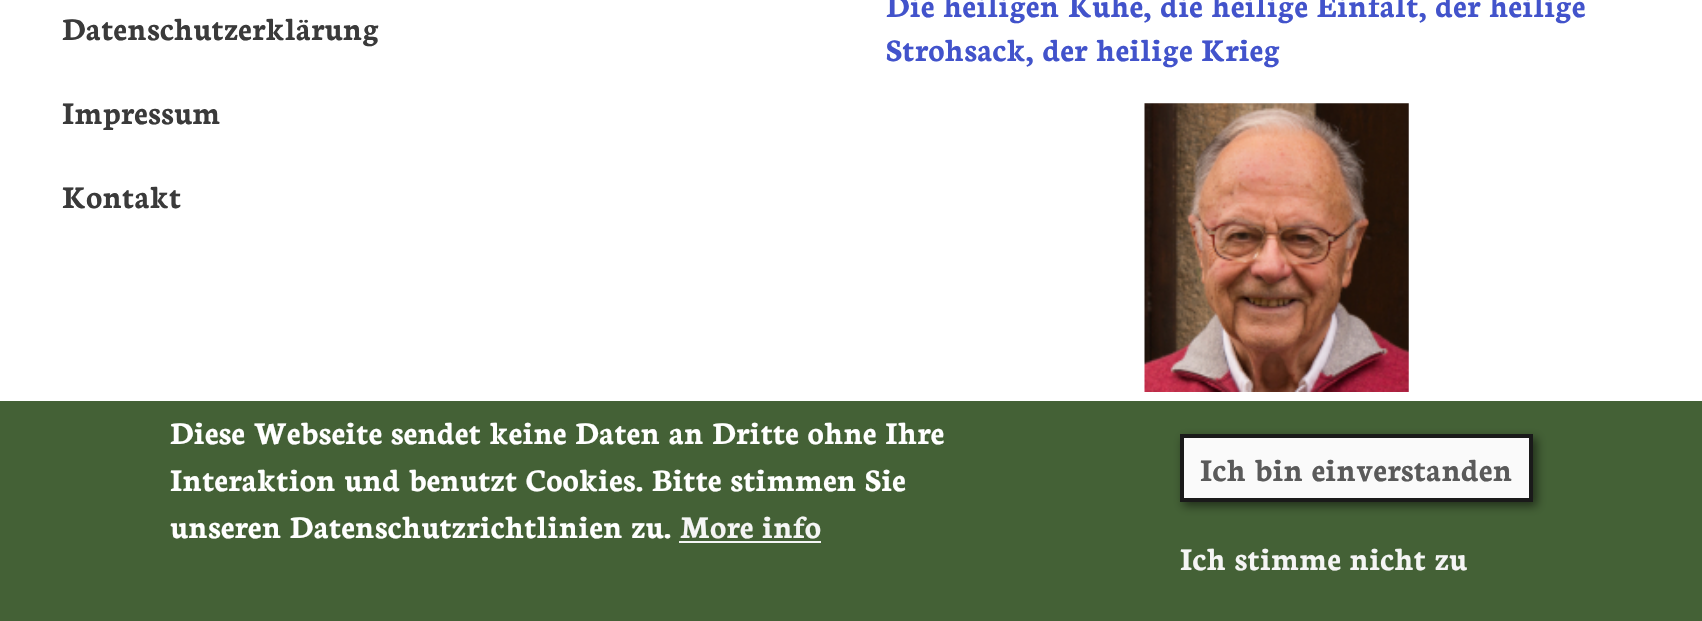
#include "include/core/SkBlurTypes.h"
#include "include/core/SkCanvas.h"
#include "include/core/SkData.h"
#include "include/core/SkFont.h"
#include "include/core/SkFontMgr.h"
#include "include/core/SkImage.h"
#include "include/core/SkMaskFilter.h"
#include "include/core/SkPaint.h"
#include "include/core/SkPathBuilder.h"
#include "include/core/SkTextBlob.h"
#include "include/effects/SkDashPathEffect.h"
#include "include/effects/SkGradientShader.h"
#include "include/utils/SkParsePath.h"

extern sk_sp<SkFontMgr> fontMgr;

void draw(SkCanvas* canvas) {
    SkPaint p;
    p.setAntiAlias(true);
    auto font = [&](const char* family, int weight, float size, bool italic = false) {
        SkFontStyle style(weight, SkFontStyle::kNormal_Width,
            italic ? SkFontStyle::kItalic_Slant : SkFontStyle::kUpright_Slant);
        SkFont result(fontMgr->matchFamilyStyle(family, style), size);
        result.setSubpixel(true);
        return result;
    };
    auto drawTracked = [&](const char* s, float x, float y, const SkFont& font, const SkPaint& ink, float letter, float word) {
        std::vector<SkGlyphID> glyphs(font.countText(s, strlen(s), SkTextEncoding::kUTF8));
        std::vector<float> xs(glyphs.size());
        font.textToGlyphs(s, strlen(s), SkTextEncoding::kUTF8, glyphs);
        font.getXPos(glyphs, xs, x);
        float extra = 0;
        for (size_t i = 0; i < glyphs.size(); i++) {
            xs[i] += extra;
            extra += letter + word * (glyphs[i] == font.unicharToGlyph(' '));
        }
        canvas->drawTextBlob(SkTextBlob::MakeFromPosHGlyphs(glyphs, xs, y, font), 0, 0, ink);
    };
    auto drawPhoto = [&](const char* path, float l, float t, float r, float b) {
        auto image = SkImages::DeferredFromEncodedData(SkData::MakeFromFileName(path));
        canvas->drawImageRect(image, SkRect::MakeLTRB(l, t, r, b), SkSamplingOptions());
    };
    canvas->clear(0xFFFFFFFF);
    auto font1 = font("Neuton", 700, 33.6f);
    p.setColor(0xFF3A3A3A);
    {
        const struct { const char* s; float x, y; } items[] = {
            {"Datenschutzerklärung", 62, 40},
            {"Impressum", 62, 124},
            {"Kontakt", 62, 208},
        };
        for (auto [s, x, y] : items) {
            drawTracked(s, x, y, font1, p, 0.17f, 0);
        }
    }
    p.setColor(0xFF4253CB);
    drawTracked("Die heiligen Kühe, die heilige Einfalt, der heilige", 886, 17, font1, p, 0.17f, 0);
    drawTracked("Strohsack, der heilige Krieg", 886, 61, font1, p, 0.17f, 0);
    drawPhoto("media/1.png", 1144, 103, 1409, 392);
    p.setColor(0xFF446136);
    canvas->drawRect(SkRect::MakeLTRB(0, 401, 1702, 621), p);
    p.setColor(0xFFFFFFFF);
    {
        const struct { const char* s; float x, y; } items[] = {
            {"Diese Webseite sendet keine Daten an Dritte ohne Ihre", 170, 444},
            {"Interaktion und benutzt Cookies. Bitte stimmen Sie", 170, 491},
            {"unseren Datenschutzrichtlinien zu.", 170, 538},
        };
        for (auto [s, x, y] : items) {
            drawTracked(s, x, y, font1, p, 0.17f, 0);
        }
    }
    p.setColor(0xFFF5F5F5);
    drawTracked("More info", 680, 538, font1, p, 0.17f, 0);
    canvas->drawRect(SkRect::MakeLTRB(679, 541, 821, 543), p);
    p.setColor(0x80000000);
    p.setMaskFilter(SkMaskFilter::MakeBlur(kNormal_SkBlurStyle, 4.5f));
    canvas->drawRect(SkRect::MakeLTRB(1183, 438, 1537, 506), p);
    p.setMaskFilter(nullptr);
    p.setColor(0xFFFAFAFA);
    canvas->drawRect(SkRect::MakeLTRB(1182, 436, 1531, 500), p);
    p.setStyle(SkPaint::kStroke_Style);
    p.setStrokeWidth(4);
    p.setColor(0xFF1A1A1A);
    canvas->drawRect(SkRect::MakeLTRB(1182, 436, 1531, 500), p);
    p.setStyle(SkPaint::kFill_Style);
    p.setColor(0xFF5A5A5A);
    drawTracked("Ich bin einverstanden", 1200, 481, font1, p, 0.17f, 0);
    p.setColor(0xFFF5F5F5);
    drawTracked("Ich stimme nicht zu", 1180, 570, font1, p, 0.17f, 0);
}
